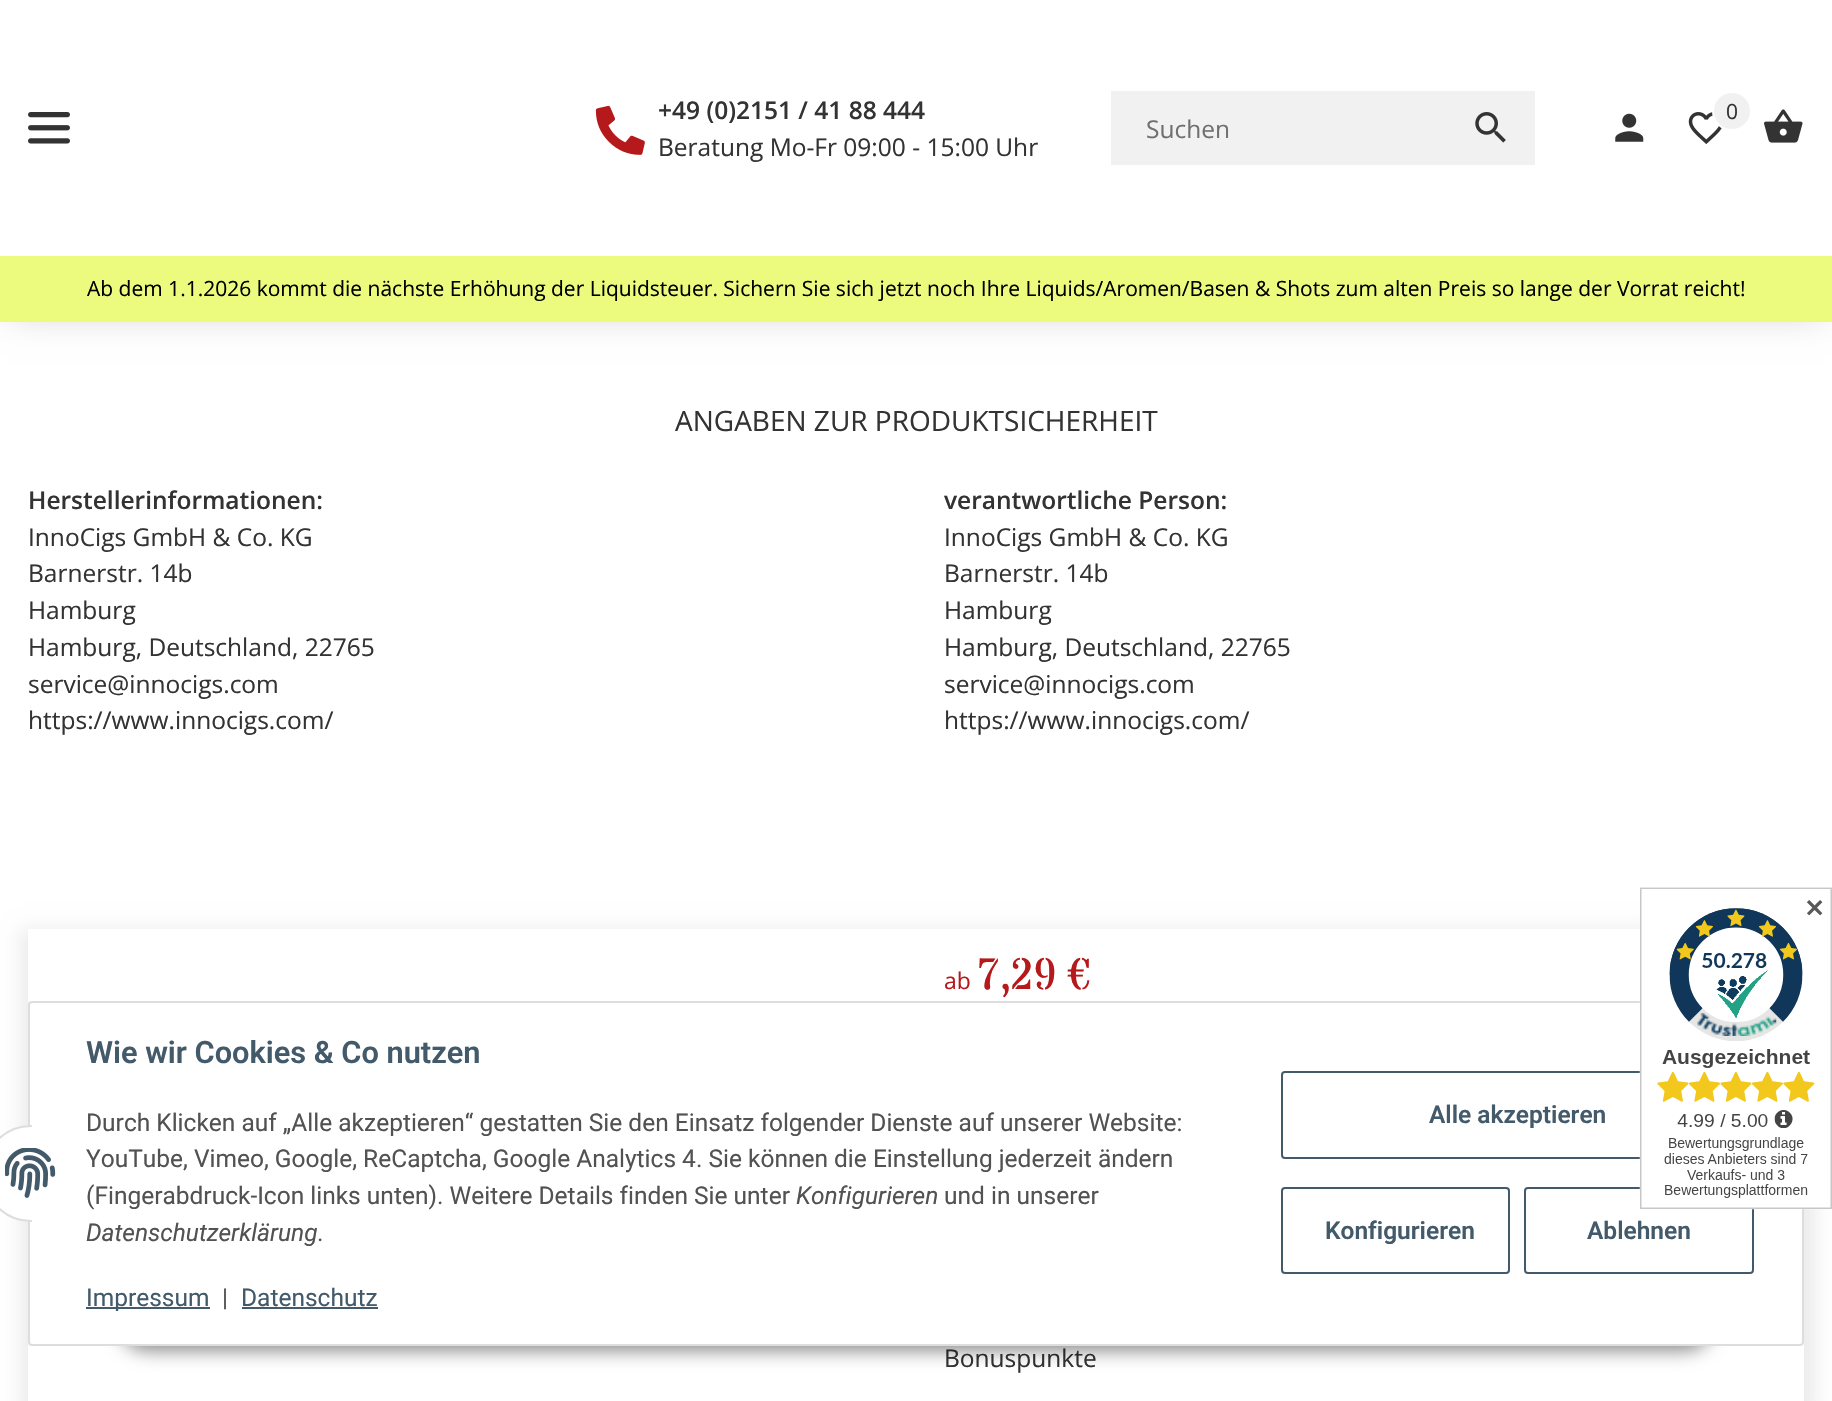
#include "include/core/SkBlurTypes.h"
#include "include/core/SkCanvas.h"
#include "include/core/SkData.h"
#include "include/core/SkFont.h"
#include "include/core/SkFontMgr.h"
#include "include/core/SkImage.h"
#include "include/core/SkMaskFilter.h"
#include "include/core/SkPaint.h"
#include "include/core/SkPathBuilder.h"
#include "include/core/SkTextBlob.h"
#include "include/effects/SkDashPathEffect.h"
#include "include/effects/SkGradientShader.h"
#include "include/utils/SkParsePath.h"

extern sk_sp<SkFontMgr> fontMgr;

void draw(SkCanvas* canvas) {
    SkPaint p;
    p.setAntiAlias(true);
    auto font = [&](const char* family, int weight, float size, bool italic = false) {
        SkFontStyle style(weight, SkFontStyle::kNormal_Width,
            italic ? SkFontStyle::kItalic_Slant : SkFontStyle::kUpright_Slant);
        SkFont result(fontMgr->matchFamilyStyle(family, style), size);
        result.setSubpixel(true);
        return result;
    };
    auto drawPhoto = [&](const char* path, float l, float t, float r, float b) {
        auto image = SkImages::DeferredFromEncodedData(SkData::MakeFromFileName(path));
        canvas->drawImageRect(image, SkRect::MakeLTRB(l, t, r, b), SkSamplingOptions());
    };
    canvas->clear(0xFFFFFFFF);
    p.setColor(0x33000000);
    p.setMaskFilter(SkMaskFilter::MakeBlur(kNormal_SkBlurStyle, 17.5f));
    canvas->drawRect(SkRect::MakeLTRB(9, 9, 1824, 313), p);
    p.setMaskFilter(nullptr);
    p.setColor(0xFFFFFFFF);
    canvas->drawRect(SkRect::MakeLTRB(0, 0, 1832, 256), p);
    drawPhoto("media/1.png", 28, 112, 70, 144);
    drawPhoto("media/2.png", 595, 105, 645, 155);
    auto font1 = font("Open Sans", 600, 24.5f);
    p.setColor(0xFF333333);
    canvas->drawString("+49 (0)2151 / 41 88 444", 658, 119, font1, p);
    auto font2 = font("Open Sans", 400, 24.5f);
    canvas->drawString("Beratung Mo-Fr 09:00 - 15:00 Uhr", 658, 156, font2, p);
    p.setColor(0xFFF1F1F1);
    canvas->drawRect(SkRect::MakeLTRB(1111, 91, 1535, 165), p);
    p.setColor(0xFF707070);
    canvas->drawString("Suchen", 1146, 138, font2, p);
    drawPhoto("media/3.png", 1475, 112, 1506, 143);
    drawPhoto("media/4.png", 1615, 113, 1644, 142);
    drawPhoto("media/5.png", 1688, 112, 1722, 144);
    p.setColor(0xFFF1F1F1);
    canvas->drawCircle(1732, 111, 19, p);
    p.setStyle(SkPaint::kStroke_Style);
    p.setStrokeWidth(2);
    p.setColor(0xFFFFFFFF);
    canvas->drawCircle(1732, 111, 19, p);
    auto font3 = font("Open Sans", 400, 21);
    p.setStyle(SkPaint::kFill_Style);
    p.setColor(0xFF333333);
    canvas->drawString("0", 1726, 119, font3, p);
    drawPhoto("media/6.png", 1764, 109, 1803, 143);
    p.setColor(0xFFECFB7E);
    canvas->drawRect(SkRect::MakeLTRB(0, 256, 1832, 322), p);
    p.setColor(0xFF000000);
    canvas->drawString("Ab dem 1.1.2026 kommt die nächste Erhöhung der Liquidsteuer. Sichern Sie sich jetzt noch Ihre Liquids/Aromen/Basen & Shots zum alten Preis so lange der Vorrat reicht!", 87, 296, font3, p);
    auto font4 = font("Open Sans", 400, 28);
    p.setColor(0xFF333333);
    canvas->drawString("ANGABEN ZUR PRODUKTSICHERHEIT", 675, 431, font4, p);
    canvas->drawString("Herstellerinformationen:", 28, 509, font1, p);
    {
        const struct { const char* s; float x, y; } items[] = {
            {"InnoCigs GmbH & Co. KG", 28, 546},
            {"Barnerstr. 14b", 28, 582},
            {"Hamburg", 28, 619},
            {"Hamburg, Deutschland, 22765", 28, 656},
            {"service@innocigs.com", 28, 693},
            {"https://www.innocigs.com/", 28, 729},
        };
        for (auto [s, x, y] : items) {
            canvas->drawString(s, x, y, font2, p);
        }
    }
    canvas->drawString("verantwortliche Person:", 944, 509, font1, p);
    {
        const struct { const char* s; float x, y; } items[] = {
            {"InnoCigs GmbH & Co. KG", 944, 546},
            {"Barnerstr. 14b", 944, 582},
            {"Hamburg", 944, 619},
            {"Hamburg, Deutschland, 22765", 944, 656},
            {"service@innocigs.com", 944, 693},
            {"https://www.innocigs.com/", 944, 729},
        };
        for (auto [s, x, y] : items) {
            canvas->drawString(s, x, y, font2, p);
        }
    }
    p.setColor(0x14000000);
    p.setMaskFilter(SkMaskFilter::MakeBlur(kNormal_SkBlurStyle, 9));
    canvas->drawRect(SkRect::MakeLTRB(21, 929, 1815, 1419), p);
    p.setMaskFilter(nullptr);
    p.setColor(0xFFFFFFFF);
    canvas->drawRect(SkRect::MakeLTRB(28, 929, 1804, 1401), p);
    auto font5 = font("Open Sans", 400, 23);
    p.setColor(0xFFB6191C);
    canvas->drawString("ab", 944, 989, font5, p);
    auto font6 = font("Stardos Stencil", 400, 44);
    canvas->drawString("7,29 €", 977, 989, font6, p);
    p.setColor(0xFF333333);
    canvas->drawString("Bonuspunkte", 944, 1367, font2, p);
    p.setColor(0x73000000);
    p.setMaskFilter(SkMaskFilter::MakeBlur(kNormal_SkBlurStyle, 9));
    canvas->drawRoundRect(SkRect::MakeLTRB(119, 1295, 1713, 1351), 28, 28, p);
    p.setMaskFilter(nullptr);
    p.setColor(0xFFFFFFFF);
    canvas->drawRoundRect(SkRect::MakeLTRB(29, 1002, 1803, 1345), 3, 3, p);
    p.setStyle(SkPaint::kStroke_Style);
    p.setColor(0xFFDDDDDD);
    canvas->drawRoundRect(SkRect::MakeLTRB(29, 1002, 1803, 1345), 3, 3, p);
    p.setColor(0xFF435A6B);
    canvas->drawRoundRect(SkRect::MakeLTRB(1282, 1072, 1753, 1158), 3, 3, p);
    canvas->drawRoundRect(SkRect::MakeLTRB(1525, 1188, 1753, 1273), 3, 3, p);
    drawPhoto("media/7.png", 1639, 887, 1832, 1210);
    auto font7 = font("DejaVu Sans", 700, 24.5f);
    p.setStyle(SkPaint::kFill_Style);
    p.setColor(0xFF595959);
    canvas->drawString("✕", 1804, 917, font7, p);
    p.setColor(0xFFFFFFFF);
    canvas->drawRoundRect(SkRect::MakeLTRB(-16, 1126, 78, 1221), 47, 47, p);
    p.setStyle(SkPaint::kStroke_Style);
    p.setColor(0xFFDDDDDD);
    canvas->drawRoundRect(SkRect::MakeLTRB(-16, 1126, 78, 1221), 47, 47, p);
    p.setStyle(SkPaint::kFill_Style);
    p.setColor(0xFFFFFFFF);
    canvas->drawRect(SkRect::MakeLTRB(32, 1125, 79, 1222), p);
    drawPhoto("media/8.png", 5, 1148, 56, 1198);
    auto font8 = font("Roboto", 600, 30.75f);
    p.setColor(0xFF435A6B);
    canvas->drawString("Wie wir Cookies & Co nutzen", 86, 1063, font8, p);
    auto font9 = font("Roboto", 400, 24.5f);
    p.setColor(0xFF525252);
    {
        const struct { const char* s; float x, y; } items[] = {
            {"Durch Klicken auf „Alle akzeptieren“ gestatten Sie den Einsatz folgender Dienste auf unserer Website:", 86, 1131},
            {"YouTube, Vimeo, Google, ReCaptcha, Google Analytics 4. Sie können die Einstellung jederzeit ändern", 86, 1167},
            {"(Fingerabdruck-Icon links unten). Weitere Details finden Sie unter", 86, 1204},
        };
        for (auto [s, x, y] : items) {
            canvas->drawString(s, x, y, font9, p);
        }
    }
    auto font10 = font("Roboto", 400, 24.5f, true);
    canvas->drawString("Konfigurieren", 796, 1204, font10, p);
    canvas->drawString("und in unserer", 944, 1204, font9, p);
    canvas->drawString("Datenschutzerklärung", 86, 1241, font10, p);
    canvas->drawString(".", 317, 1241, font9, p);
    p.setColor(0xFF435A6B);
    canvas->drawRect(SkRect::MakeLTRB(86, 1307, 210, 1309), p);
    canvas->drawString("Impressum", 86, 1306, font9, p);
    p.setColor(0xFF525252);
    canvas->drawString("|", 222, 1306, font9, p);
    p.setColor(0xFF435A6B);
    canvas->drawString("Datenschutz", 241, 1306, font9, p);
    canvas->drawRect(SkRect::MakeLTRB(242, 1307, 378, 1309), p);
    auto font11 = font("Roboto", 600, 24.5f);
    canvas->drawString("Alle akzeptieren", 1429, 1123, font11, p);
    p.setStyle(SkPaint::kStroke_Style);
    canvas->drawRoundRect(SkRect::MakeLTRB(1282, 1188, 1509, 1273), 3, 3, p);
    p.setStyle(SkPaint::kFill_Style);
    canvas->drawString("Konfigurieren", 1325, 1239, font11, p);
    canvas->drawString("Ablehnen", 1587, 1239, font11, p);
}
